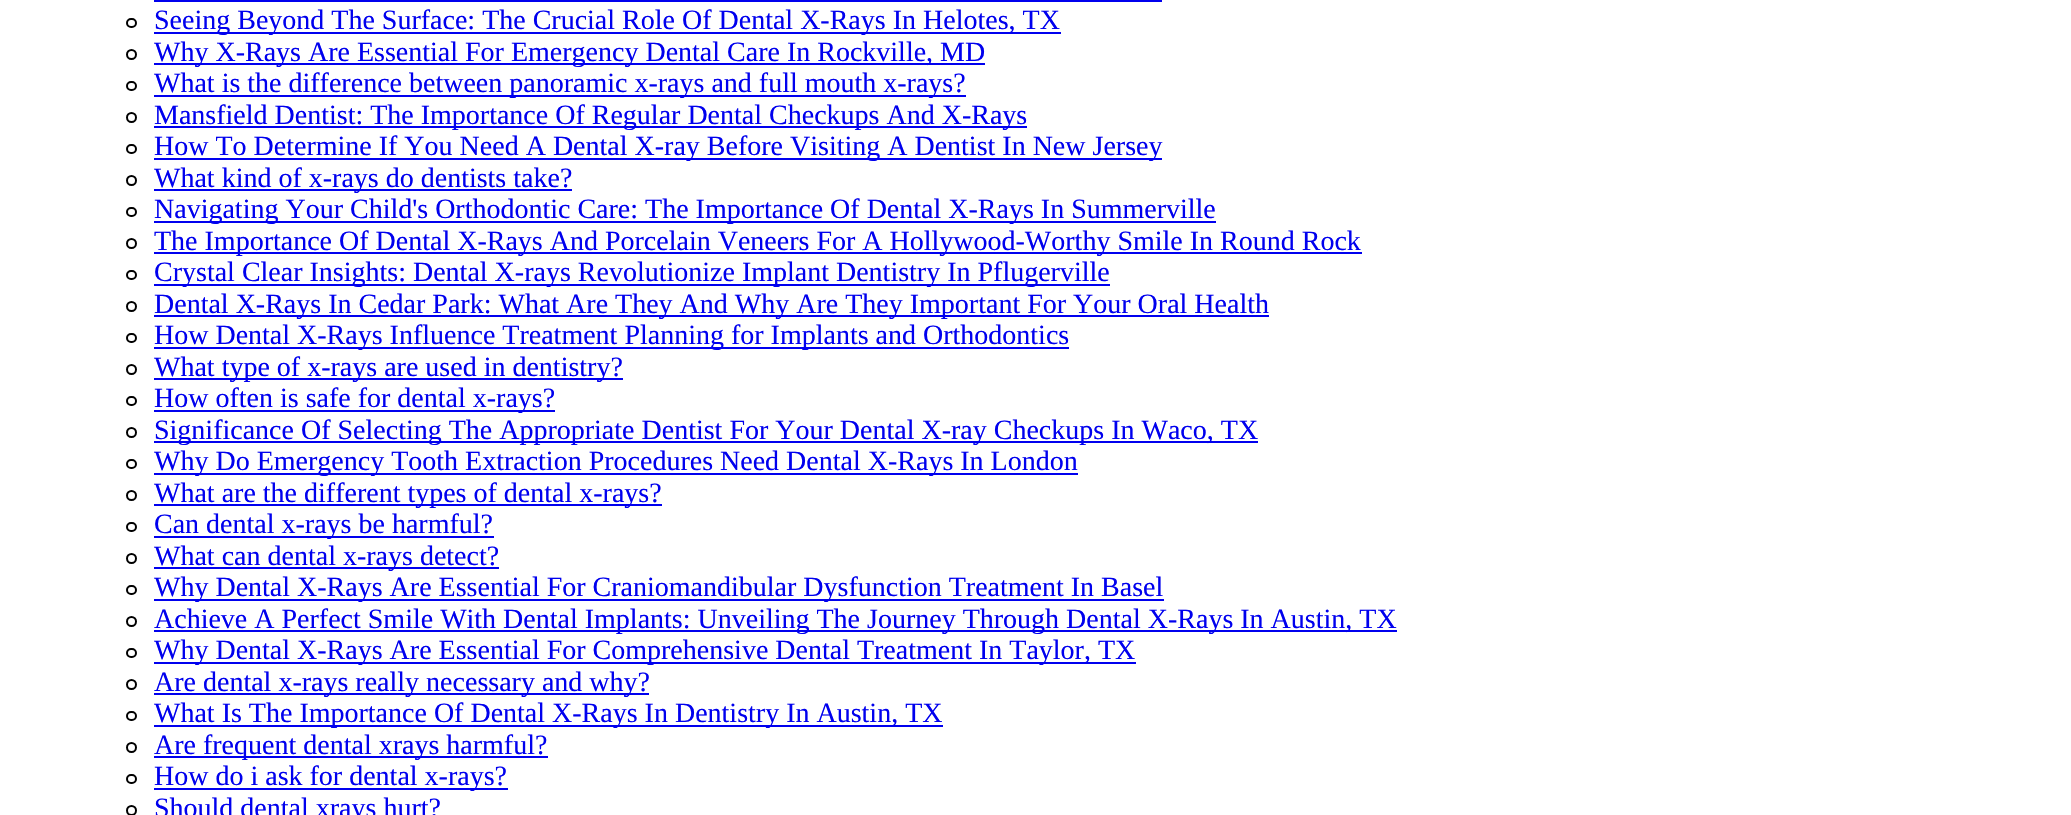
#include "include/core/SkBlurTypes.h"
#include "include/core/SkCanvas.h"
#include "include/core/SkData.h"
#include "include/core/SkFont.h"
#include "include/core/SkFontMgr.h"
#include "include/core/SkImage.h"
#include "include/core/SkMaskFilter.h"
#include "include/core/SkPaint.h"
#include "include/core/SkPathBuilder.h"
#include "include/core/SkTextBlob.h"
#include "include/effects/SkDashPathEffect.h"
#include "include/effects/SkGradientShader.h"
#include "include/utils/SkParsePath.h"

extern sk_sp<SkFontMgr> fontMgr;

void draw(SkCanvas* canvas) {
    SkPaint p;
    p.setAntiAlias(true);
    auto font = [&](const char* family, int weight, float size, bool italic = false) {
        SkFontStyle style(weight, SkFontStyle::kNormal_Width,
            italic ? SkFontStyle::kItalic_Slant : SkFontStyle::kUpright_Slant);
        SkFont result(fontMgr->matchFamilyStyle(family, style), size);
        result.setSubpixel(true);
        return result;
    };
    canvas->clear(0xFFFFFFFF);
    p.setColor(0xFF0000EE);
    canvas->drawRect(SkRect::MakeLTRB(154, 0, 1162, 2), p);
    p.setStyle(SkPaint::kStroke_Style);
    p.setStrokeWidth(2);
    p.setColor(0xFF000000);
    canvas->drawRoundRect(SkRect::MakeLTRB(127, 19, 136, 27), 4, 4, p);
    p.setStyle(SkPaint::kFill_Style);
    p.setColor(0xFF0000EE);
    canvas->drawRect(SkRect::MakeLTRB(154, 32, 1061, 34), p);
    auto font1 = font("Liberation Serif", 400, 28);
    canvas->drawString("Seeing Beyond The Surface: The Crucial Role Of Dental X-Rays In Helotes, TX", 154, 29, font1, p);
    p.setStyle(SkPaint::kStroke_Style);
    p.setColor(0xFF000000);
    canvas->drawCircle(131.5f, 54.5f, 4.5f, p);
    p.setStyle(SkPaint::kFill_Style);
    p.setColor(0xFF0000EE);
    canvas->drawRect(SkRect::MakeLTRB(154, 63, 985, 65), p);
    canvas->drawString("Why X-Rays Are Essential For Emergency Dental Care In Rockville, MD", 154, 61, font1, p);
    p.setStyle(SkPaint::kStroke_Style);
    p.setColor(0xFF000000);
    canvas->drawRoundRect(SkRect::MakeLTRB(127, 82, 136, 90), 4, 4, p);
    p.setStyle(SkPaint::kFill_Style);
    p.setColor(0xFF0000EE);
    canvas->drawRect(SkRect::MakeLTRB(154, 95, 966, 97), p);
    canvas->drawString("What is the difference between panoramic x-rays and full mouth x-rays?", 154, 92, font1, p);
    p.setStyle(SkPaint::kStroke_Style);
    p.setColor(0xFF000000);
    canvas->drawCircle(131.5f, 117.5f, 4.5f, p);
    p.setStyle(SkPaint::kFill_Style);
    p.setColor(0xFF0000EE);
    canvas->drawRect(SkRect::MakeLTRB(154, 126, 1027, 128), p);
    canvas->drawString("Mansfield Dentist: The Importance Of Regular Dental Checkups And X-Rays", 154, 124, font1, p);
    p.setStyle(SkPaint::kStroke_Style);
    p.setColor(0xFF000000);
    canvas->drawRoundRect(SkRect::MakeLTRB(127, 145, 136, 153), 4, 4, p);
    p.setStyle(SkPaint::kFill_Style);
    p.setColor(0xFF0000EE);
    canvas->drawRect(SkRect::MakeLTRB(154, 158, 1162, 160), p);
    canvas->drawString("How To Determine If You Need A Dental X-ray Before Visiting A Dentist In New Jersey", 154, 155, font1, p);
    p.setStyle(SkPaint::kStroke_Style);
    p.setColor(0xFF000000);
    canvas->drawCircle(131.5f, 180.5f, 4.5f, p);
    p.setStyle(SkPaint::kFill_Style);
    p.setColor(0xFF0000EE);
    canvas->drawRect(SkRect::MakeLTRB(154, 189, 572, 191), p);
    canvas->drawString("What kind of x-rays do dentists take?", 154, 187, font1, p);
    p.setStyle(SkPaint::kStroke_Style);
    p.setColor(0xFF000000);
    canvas->drawRoundRect(SkRect::MakeLTRB(127, 208, 136, 216), 4, 4, p);
    p.setStyle(SkPaint::kFill_Style);
    p.setColor(0xFF0000EE);
    canvas->drawRect(SkRect::MakeLTRB(154, 221, 1216, 223), p);
    canvas->drawString("Navigating Your Child's Orthodontic Care: The Importance Of Dental X-Rays In Summerville", 154, 218, font1, p);
    p.setStyle(SkPaint::kStroke_Style);
    p.setColor(0xFF000000);
    canvas->drawCircle(131.5f, 243.5f, 4.5f, p);
    p.setStyle(SkPaint::kFill_Style);
    p.setColor(0xFF0000EE);
    canvas->drawRect(SkRect::MakeLTRB(154, 252, 1362, 254), p);
    canvas->drawString("The Importance Of Dental X-Rays And Porcelain Veneers For A Hollywood-Worthy Smile In Round Rock", 154, 250, font1, p);
    p.setStyle(SkPaint::kStroke_Style);
    p.setColor(0xFF000000);
    canvas->drawRoundRect(SkRect::MakeLTRB(127, 271, 136, 279), 4, 4, p);
    p.setStyle(SkPaint::kFill_Style);
    p.setColor(0xFF0000EE);
    canvas->drawRect(SkRect::MakeLTRB(154, 284, 1110, 286), p);
    canvas->drawString("Crystal Clear Insights: Dental X-rays Revolutionize Implant Dentistry In Pflugerville", 154, 281, font1, p);
    p.setStyle(SkPaint::kStroke_Style);
    p.setColor(0xFF000000);
    canvas->drawCircle(131.5f, 306.5f, 4.5f, p);
    p.setStyle(SkPaint::kFill_Style);
    p.setColor(0xFF0000EE);
    canvas->drawRect(SkRect::MakeLTRB(154, 315, 1269, 317), p);
    canvas->drawString("Dental X-Rays In Cedar Park: What Are They And Why Are They Important For Your Oral Health", 154, 313, font1, p);
    p.setStyle(SkPaint::kStroke_Style);
    p.setColor(0xFF000000);
    canvas->drawRoundRect(SkRect::MakeLTRB(127, 334, 136, 342), 4, 4, p);
    p.setStyle(SkPaint::kFill_Style);
    p.setColor(0xFF0000EE);
    canvas->drawRect(SkRect::MakeLTRB(154, 347, 1069, 349), p);
    canvas->drawString("How Dental X-Rays Influence Treatment Planning for Implants and Orthodontics", 154, 344, font1, p);
    p.setStyle(SkPaint::kStroke_Style);
    p.setColor(0xFF000000);
    canvas->drawCircle(131.5f, 369.5f, 4.5f, p);
    p.setStyle(SkPaint::kFill_Style);
    p.setColor(0xFF0000EE);
    canvas->drawRect(SkRect::MakeLTRB(154, 378, 623, 380), p);
    canvas->drawString("What type of x-rays are used in dentistry?", 154, 376, font1, p);
    p.setStyle(SkPaint::kStroke_Style);
    p.setColor(0xFF000000);
    canvas->drawRoundRect(SkRect::MakeLTRB(127, 397, 136, 405), 4, 4, p);
    p.setStyle(SkPaint::kFill_Style);
    p.setColor(0xFF0000EE);
    canvas->drawRect(SkRect::MakeLTRB(154, 410, 555, 412), p);
    canvas->drawString("How often is safe for dental x-rays?", 154, 407, font1, p);
    p.setStyle(SkPaint::kStroke_Style);
    p.setColor(0xFF000000);
    canvas->drawCircle(131.5f, 432.5f, 4.5f, p);
    p.setStyle(SkPaint::kFill_Style);
    p.setColor(0xFF0000EE);
    canvas->drawRect(SkRect::MakeLTRB(154, 441, 1258, 443), p);
    canvas->drawString("Significance Of Selecting The Appropriate Dentist For Your Dental X-ray Checkups In Waco, TX", 154, 439, font1, p);
    p.setStyle(SkPaint::kStroke_Style);
    p.setColor(0xFF000000);
    canvas->drawRoundRect(SkRect::MakeLTRB(127, 460, 136, 468), 4, 4, p);
    p.setStyle(SkPaint::kFill_Style);
    p.setColor(0xFF0000EE);
    canvas->drawRect(SkRect::MakeLTRB(154, 473, 1078, 475), p);
    canvas->drawString("Why Do Emergency Tooth Extraction Procedures Need Dental X-Rays In London", 154, 470, font1, p);
    p.setStyle(SkPaint::kStroke_Style);
    p.setColor(0xFF000000);
    canvas->drawCircle(131.5f, 495.5f, 4.5f, p);
    p.setStyle(SkPaint::kFill_Style);
    p.setColor(0xFF0000EE);
    canvas->drawRect(SkRect::MakeLTRB(154, 504, 662, 506), p);
    canvas->drawString("What are the different types of dental x-rays?", 154, 502, font1, p);
    p.setStyle(SkPaint::kStroke_Style);
    p.setColor(0xFF000000);
    canvas->drawRoundRect(SkRect::MakeLTRB(127, 523, 136, 531), 4, 4, p);
    p.setStyle(SkPaint::kFill_Style);
    p.setColor(0xFF0000EE);
    canvas->drawRect(SkRect::MakeLTRB(154, 536, 494, 538), p);
    canvas->drawString("Can dental x-rays be harmful?", 154, 533, font1, p);
    p.setStyle(SkPaint::kStroke_Style);
    p.setColor(0xFF000000);
    canvas->drawCircle(131.5f, 558.5f, 4.5f, p);
    p.setStyle(SkPaint::kFill_Style);
    p.setColor(0xFF0000EE);
    canvas->drawRect(SkRect::MakeLTRB(154, 567, 499, 569), p);
    canvas->drawString("What can dental x-rays detect?", 154, 565, font1, p);
    p.setStyle(SkPaint::kStroke_Style);
    p.setColor(0xFF000000);
    canvas->drawRoundRect(SkRect::MakeLTRB(127, 586, 136, 594), 4, 4, p);
    p.setStyle(SkPaint::kFill_Style);
    p.setColor(0xFF0000EE);
    canvas->drawRect(SkRect::MakeLTRB(154, 599, 1164, 601), p);
    canvas->drawString("Why Dental X-Rays Are Essential For Craniomandibular Dysfunction Treatment In Basel", 154, 596, font1, p);
    p.setStyle(SkPaint::kStroke_Style);
    p.setColor(0xFF000000);
    canvas->drawCircle(131.5f, 621.5f, 4.5f, p);
    p.setStyle(SkPaint::kFill_Style);
    p.setColor(0xFF0000EE);
    canvas->drawRect(SkRect::MakeLTRB(154, 630, 1397, 632), p);
    canvas->drawString("Achieve A Perfect Smile With Dental Implants: Unveiling The Journey Through Dental X-Rays In Austin, TX", 154, 628, font1, p);
    p.setStyle(SkPaint::kStroke_Style);
    p.setColor(0xFF000000);
    canvas->drawRoundRect(SkRect::MakeLTRB(127, 649, 136, 657), 4, 4, p);
    p.setStyle(SkPaint::kFill_Style);
    p.setColor(0xFF0000EE);
    canvas->drawRect(SkRect::MakeLTRB(154, 662, 1136, 664), p);
    canvas->drawString("Why Dental X-Rays Are Essential For Comprehensive Dental Treatment In Taylor, TX", 154, 659, font1, p);
    p.setStyle(SkPaint::kStroke_Style);
    p.setColor(0xFF000000);
    canvas->drawCircle(131.5f, 684.5f, 4.5f, p);
    p.setStyle(SkPaint::kFill_Style);
    p.setColor(0xFF0000EE);
    canvas->drawRect(SkRect::MakeLTRB(154, 693, 649, 695), p);
    canvas->drawString("Are dental x-rays really necessary and why?", 154, 691, font1, p);
    p.setStyle(SkPaint::kStroke_Style);
    p.setColor(0xFF000000);
    canvas->drawRoundRect(SkRect::MakeLTRB(127, 712, 136, 720), 4, 4, p);
    p.setStyle(SkPaint::kFill_Style);
    p.setColor(0xFF0000EE);
    canvas->drawRect(SkRect::MakeLTRB(154, 725, 943, 727), p);
    canvas->drawString("What Is The Importance Of Dental X-Rays In Dentistry In Austin, TX", 154, 722, font1, p);
    p.setStyle(SkPaint::kStroke_Style);
    p.setColor(0xFF000000);
    canvas->drawCircle(131.5f, 747.5f, 4.5f, p);
    p.setStyle(SkPaint::kFill_Style);
    p.setColor(0xFF0000EE);
    canvas->drawRect(SkRect::MakeLTRB(154, 756, 548, 758), p);
    canvas->drawString("Are frequent dental xrays harmful?", 154, 754, font1, p);
    p.setStyle(SkPaint::kStroke_Style);
    p.setColor(0xFF000000);
    canvas->drawRoundRect(SkRect::MakeLTRB(127, 775, 136, 783), 4, 4, p);
    p.setStyle(SkPaint::kFill_Style);
    p.setColor(0xFF0000EE);
    canvas->drawRect(SkRect::MakeLTRB(154, 788, 508, 790), p);
    canvas->drawString("How do i ask for dental x-rays?", 154, 785, font1, p);
    p.setStyle(SkPaint::kStroke_Style);
    p.setColor(0xFF000000);
    canvas->drawCircle(131.5f, 810.5f, 4.5f, p);
    p.setStyle(SkPaint::kFill_Style);
    p.setColor(0xFF0000EE);
    canvas->drawString("Should dental xrays hurt?", 154, 817, font1, p);
}
